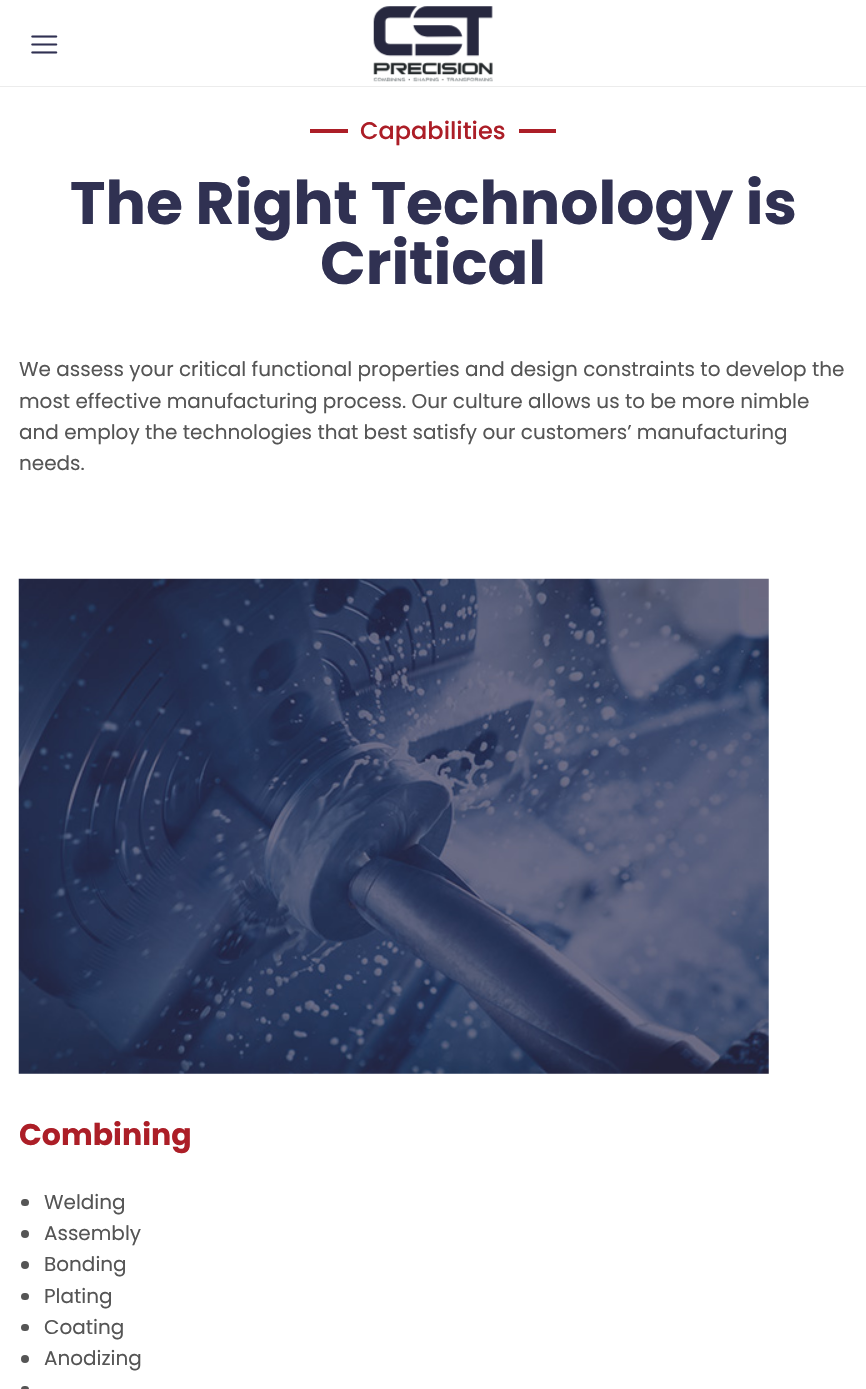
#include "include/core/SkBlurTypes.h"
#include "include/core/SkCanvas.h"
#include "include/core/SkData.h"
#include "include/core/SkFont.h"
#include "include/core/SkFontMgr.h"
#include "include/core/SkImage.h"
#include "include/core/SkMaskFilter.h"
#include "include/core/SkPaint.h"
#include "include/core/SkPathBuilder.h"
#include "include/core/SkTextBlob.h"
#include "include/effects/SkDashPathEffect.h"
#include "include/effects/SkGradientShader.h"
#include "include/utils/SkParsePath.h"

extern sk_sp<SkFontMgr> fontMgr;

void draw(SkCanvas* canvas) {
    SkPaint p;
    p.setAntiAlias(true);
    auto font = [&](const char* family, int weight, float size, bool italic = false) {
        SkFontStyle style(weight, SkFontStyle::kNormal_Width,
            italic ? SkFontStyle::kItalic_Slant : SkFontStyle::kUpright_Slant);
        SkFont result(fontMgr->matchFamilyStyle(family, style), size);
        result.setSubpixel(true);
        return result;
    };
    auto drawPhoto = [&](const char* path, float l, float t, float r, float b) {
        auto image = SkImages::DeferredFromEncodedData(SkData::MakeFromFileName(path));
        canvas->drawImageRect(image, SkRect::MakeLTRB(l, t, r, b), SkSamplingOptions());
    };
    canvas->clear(0xFFFFFFFF);
    p.setColor(0xFFECECEC);
    canvas->drawRect(SkRect::MakeLTRB(0, 86, 866, 87), p);
    drawPhoto("media/1.png", 31, 35, 58, 54);
    drawPhoto("media/2.png", 373, 6, 493, 82);
    p.setColor(0xFFAC1E27);
    canvas->drawRect(SkRect::MakeLTRB(310, 129, 348, 133), p);
    auto font1 = font("Poppins", 500, 24);
    canvas->drawString("Capabilities", 360, 139, font1, p);
    canvas->drawRect(SkRect::MakeLTRB(519, 129, 556, 133), p);
    auto font2 = font("Poppins", 700, 60);
    p.setColor(0xFF303152);
    canvas->drawString("The Right Technology is", 70, 224, font2, p);
    canvas->drawString("Critical", 320, 284, font2, p);
    auto font3 = font("Poppins", 400, 20);
    p.setColor(0xFF555555);
    {
        const struct { const char* s; float x, y; } items[] = {
            {"We assess your critical functional properties and design constraints to develop the", 19, 376},
            {"most effective manufacturing process. Our culture allows us to be more nimble", 19, 408},
            {"and employ the technologies that best satisfy our customers’ manufacturing", 19, 439},
            {"needs.", 19, 470},
        };
        for (auto [s, x, y] : items) {
            canvas->drawString(s, x, y, font3, p);
        }
    }
    drawPhoto("media/3.png", 18, 578, 769, 1074);
    auto font4 = font("Poppins", 700, 30);
    p.setColor(0xFFAC1E27);
    canvas->drawString("Combining", 19, 1145, font4, p);
    p.setColor(0xFF555555);
    canvas->drawRoundRect(SkRect::MakeLTRB(21, 1199, 29, 1206), 3.5f, 3.5f, p);
    canvas->drawString("Welding", 44, 1209, font3, p);
    canvas->drawCircle(25, 1234, 4, p);
    canvas->drawString("Assembly", 44, 1240, font3, p);
    canvas->drawCircle(25, 1265, 4, p);
    canvas->drawString("Bonding", 44, 1271, font3, p);
    canvas->drawRoundRect(SkRect::MakeLTRB(21, 1293, 29, 1300), 3.5f, 3.5f, p);
    canvas->drawString("Plating", 44, 1303, font3, p);
    canvas->drawRoundRect(SkRect::MakeLTRB(21, 1324, 29, 1331), 3.5f, 3.5f, p);
    canvas->drawString("Coating", 44, 1334, font3, p);
    canvas->drawCircle(25, 1359, 4, p);
    canvas->drawString("Anodizing", 44, 1365, font3, p);
    canvas->drawRoundRect(SkRect::MakeLTRB(21, 1386, 29, 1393), 4, 4, p);
}
